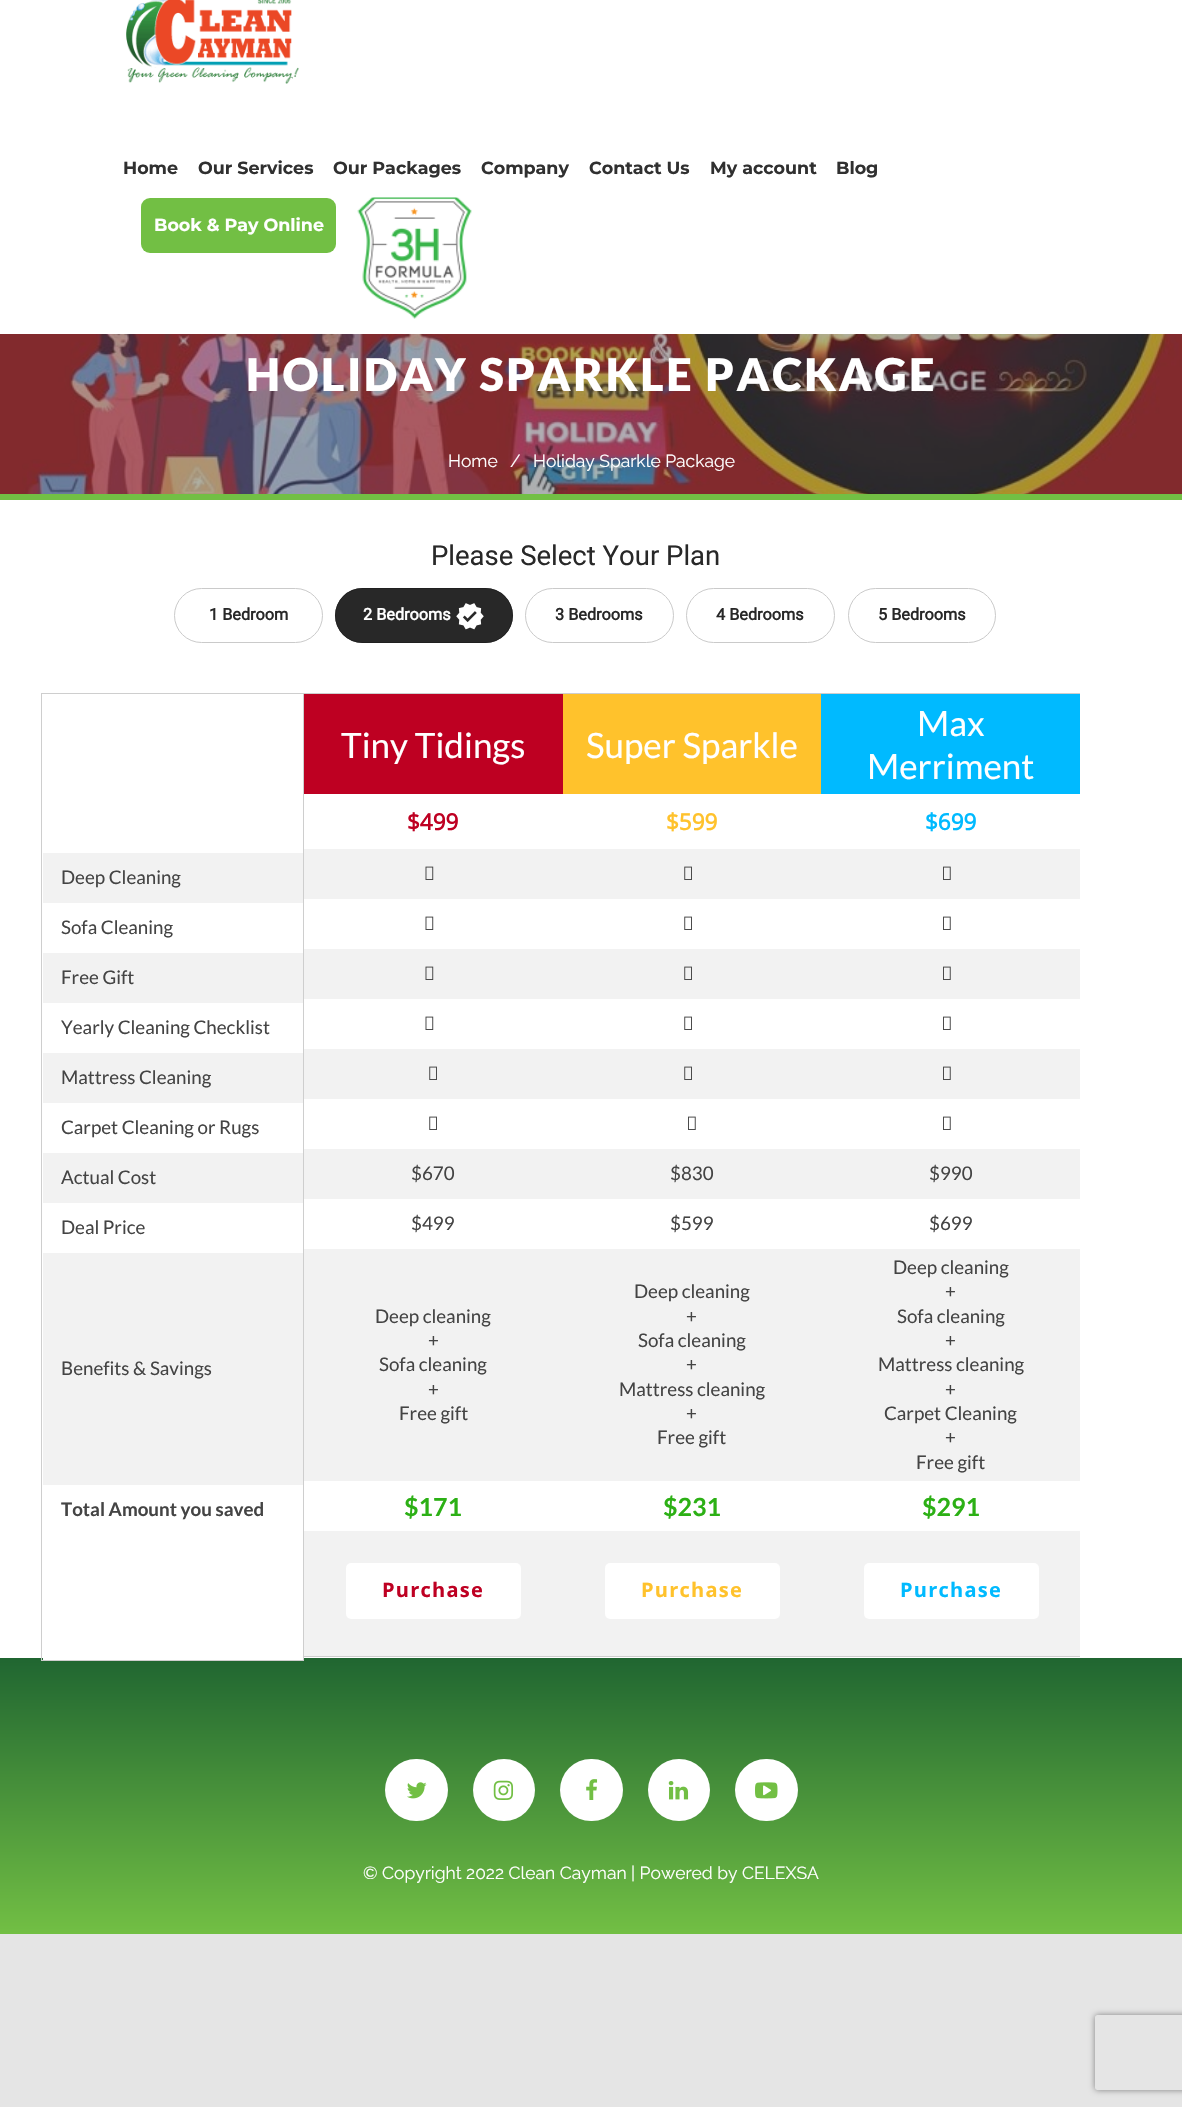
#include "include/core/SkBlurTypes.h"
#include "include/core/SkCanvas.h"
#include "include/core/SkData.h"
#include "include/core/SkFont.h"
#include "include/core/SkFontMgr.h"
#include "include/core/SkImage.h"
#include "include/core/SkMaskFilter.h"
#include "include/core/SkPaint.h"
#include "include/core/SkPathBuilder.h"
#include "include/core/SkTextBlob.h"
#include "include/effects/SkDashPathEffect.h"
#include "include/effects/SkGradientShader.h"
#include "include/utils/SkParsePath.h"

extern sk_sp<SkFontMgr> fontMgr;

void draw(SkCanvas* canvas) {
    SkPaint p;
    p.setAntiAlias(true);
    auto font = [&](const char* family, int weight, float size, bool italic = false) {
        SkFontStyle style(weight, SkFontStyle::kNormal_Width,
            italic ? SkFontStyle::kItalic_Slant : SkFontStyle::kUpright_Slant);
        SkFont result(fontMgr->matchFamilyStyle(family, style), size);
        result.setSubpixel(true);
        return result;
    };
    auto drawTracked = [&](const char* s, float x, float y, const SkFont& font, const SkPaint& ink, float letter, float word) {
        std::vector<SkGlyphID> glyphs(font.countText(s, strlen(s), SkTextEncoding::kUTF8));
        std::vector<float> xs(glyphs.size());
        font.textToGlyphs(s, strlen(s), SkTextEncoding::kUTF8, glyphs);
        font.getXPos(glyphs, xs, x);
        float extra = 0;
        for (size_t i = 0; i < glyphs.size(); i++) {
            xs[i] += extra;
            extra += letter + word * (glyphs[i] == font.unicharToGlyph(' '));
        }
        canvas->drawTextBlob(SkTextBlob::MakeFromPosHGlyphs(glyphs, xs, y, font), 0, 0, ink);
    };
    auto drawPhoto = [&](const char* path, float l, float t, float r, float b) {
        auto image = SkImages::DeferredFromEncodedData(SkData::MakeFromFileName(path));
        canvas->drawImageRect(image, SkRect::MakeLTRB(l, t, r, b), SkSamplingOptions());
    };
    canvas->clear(0xFFE5E5E5);
    p.setColor(0xFFFFFFFF);
    canvas->drawRect(SkRect::MakeLTRB(0, 500, 1182, 1658), p);
    canvas->drawRect(SkRect::MakeLTRB(0, 0, 1182, 334), p);
    drawPhoto("media/1.png", 126, 0, 299, 84);
    auto font1 = font("Montserrat", 700, 17.5f);
    p.setColor(0xFF303030);
    {
        const struct { const char* s; float x, y; } items[] = {
            {"Home", 123, 174},
            {"Our Services", 198, 174},
            {"Our Packages", 333, 174},
            {"Company", 481, 174},
            {"Contact Us", 589, 174},
            {"My account", 710, 174},
            {"Blog", 836, 174},
        };
        for (auto [s, x, y] : items) {
            canvas->drawString(s, x, y, font1, p);
        }
    }
    p.setColor(0xFF72BF44);
    canvas->drawRoundRect(SkRect::MakeLTRB(141, 198, 336, 253), 9, 9, p);
    p.setColor(0xFFFFFFFF);
    canvas->drawString("Book & Pay Online", 154, 231, font1, p);
    drawPhoto("media/2.png", 357, 197, 472, 319);
    p.setColor(0xFF72BF44);
    canvas->drawRect(SkRect::MakeLTRB(0, 494, 1182, 500), p);
    drawPhoto("media/3.png", 0, 334, 1182, 494);
    auto font2 = font("Lato", 900, 45);
    p.setColor(0xFFFFFFFF);
    drawTracked("HOLIDAY SPARKLE PACKAGE", 246, 391, font2, p, 2.5f, 0);
    auto font3 = font("Raleway", 400, 17.5f);
    {
        const struct { const char* s; float x, y; } items[] = {
            {"Home", 448, 467},
            {"/", 510, 467},
            {"Holiday Sparkle Package", 533, 467},
        };
        for (auto [s, x, y] : items) {
            canvas->drawString(s, x, y, font3, p);
        }
    }
    auto font4 = font("Roboto", 400, 27.5f);
    p.setColor(0xFF282828);
    canvas->drawString("Please Select Your Plan", 431, 565, font4, p);
    p.setStyle(SkPaint::kStroke_Style);
    p.setStrokeWidth(1);
    p.setColor(0xFFCACACA);
    canvas->drawRoundRect(SkRect::MakeLTRB(174.5f, 588.5f, 322.5f, 642.5f), 27, 27, p);
    auto font5 = font("Roboto", 700, 16.25f);
    p.setStyle(SkPaint::kFill_Style);
    p.setColor(0xFF282828);
    canvas->drawString("1 Bedroom", 209, 620, font5, p);
    canvas->drawRoundRect(SkRect::MakeLTRB(335, 588, 513, 643), 27.5f, 27.5f, p);
    p.setStyle(SkPaint::kStroke_Style);
    p.setColor(0xB31C1C1C);
    canvas->drawRoundRect(SkRect::MakeLTRB(335.5f, 588.5f, 512.5f, 642.5f), 27, 27, p);
    p.setStyle(SkPaint::kFill_Style);
    p.setColor(0xFFFFFFFF);
    canvas->drawString("2 Bedrooms", 363, 620, font5, p);
    drawPhoto("media/4.png", 456, 603, 484, 630);
    p.setStyle(SkPaint::kStroke_Style);
    p.setColor(0xFFCACACA);
    canvas->drawRoundRect(SkRect::MakeLTRB(525.5f, 588.5f, 673.5f, 642.5f), 27, 27, p);
    p.setStyle(SkPaint::kFill_Style);
    p.setColor(0xFF282828);
    canvas->drawString("3 Bedrooms", 555, 620, font5, p);
    p.setStyle(SkPaint::kStroke_Style);
    p.setColor(0xFFCACACA);
    canvas->drawRoundRect(SkRect::MakeLTRB(686.5f, 588.5f, 834.5f, 642.5f), 27, 27, p);
    p.setStyle(SkPaint::kFill_Style);
    p.setColor(0xFF282828);
    canvas->drawString("4 Bedrooms", 716, 620, font5, p);
    p.setStyle(SkPaint::kStroke_Style);
    p.setColor(0xFFCACACA);
    canvas->drawRoundRect(SkRect::MakeLTRB(848.5f, 588.5f, 995.5f, 642.5f), 27, 27, p);
    p.setStyle(SkPaint::kFill_Style);
    p.setColor(0xFF282828);
    canvas->drawString("5 Bedrooms", 878, 620, font5, p);
    {
        const SkColor colors[] = {0xFF206631, 0xFF72BF44};
        const float stops[] = {0, 1};
        const SkPoint ends[] = {{591, 1658}, {591, 1934}};
        p.setShader(SkGradientShader::MakeLinear(ends, colors, stops, 2, SkTileMode::kClamp));
        p.setAlpha(255);
    }
    canvas->drawRect(SkRect::MakeLTRB(0, 1658, 1182, 1934), p);
    p.setStyle(SkPaint::kStroke_Style);
    p.setShader(nullptr);
    p.setColor(0xFFCECECE);
    canvas->drawRect(SkRect::MakeLTRB(41.5f, 693.5f, 303.5f, 1660.5f), p);
    p.setStyle(SkPaint::kFill_Style);
    p.setColor(0xFFF2F2F2);
    canvas->drawRect(SkRect::MakeLTRB(43, 853, 303, 903), p);
    auto font6 = font("Lato", 400, 18.75f);
    p.setColor(0xFF444444);
    canvas->drawString("Deep Cleaning", 61, 884, font6, p);
    canvas->drawString("Sofa Cleaning", 61, 934, font6, p);
    p.setColor(0xFFF2F2F2);
    canvas->drawRect(SkRect::MakeLTRB(43, 953, 303, 1003), p);
    p.setColor(0xFF444444);
    canvas->drawString("Free Gift", 61, 984, font6, p);
    canvas->drawString("Yearly Cleaning Checklist", 61, 1034, font6, p);
    p.setColor(0xFFF2F2F2);
    canvas->drawRect(SkRect::MakeLTRB(43, 1053, 303, 1103), p);
    p.setColor(0xFF444444);
    canvas->drawString("Mattress Cleaning", 61, 1084, font6, p);
    canvas->drawString("Carpet Cleaning or Rugs", 61, 1134, font6, p);
    p.setColor(0xFFF2F2F2);
    canvas->drawRect(SkRect::MakeLTRB(43, 1153, 303, 1203), p);
    p.setColor(0xFF444444);
    canvas->drawString("Actual Cost", 61, 1184, font6, p);
    canvas->drawString("Deal Price", 61, 1234, font6, p);
    p.setColor(0xFFF2F2F2);
    canvas->drawRect(SkRect::MakeLTRB(43, 1253, 303, 1485), p);
    p.setColor(0xFF444444);
    canvas->drawString("Benefits & Savings", 61, 1375, font6, p);
    auto font7 = font("Lato", 700, 18.75f);
    canvas->drawString("Total Amount you saved", 61, 1516, font7, p);
    {
        const struct { float l, t, r, b; SkColor color; } items[] = {
            {43, 1658, 303, 1660, 0xFFFFFFFF},
            {304, 693, 1080, 694, 0xFFCECECE},
            {304, 1656, 1080, 1657, 0xFFCECECE},
            {304, 694, 563, 794, 0xFFBE0022},
        };
        for (auto [l, t, r, b, color] : items) {
            p.setColor(color);
            canvas->drawRect(SkRect::MakeLTRB(l, t, r, b), p);
        }
    }
    auto font8 = font("Lato", 400, 35);
    p.setColor(0xFFFFFFFF);
    canvas->drawString("Tiny Tidings", 341, 758, font8, p);
    auto font9 = font("Open Sans", 700, 22.5f);
    p.setColor(0xFFBE0022);
    canvas->drawString("$499", 407, 830, font9, p);
    p.setColor(0xFFF2F2F2);
    canvas->drawRect(SkRect::MakeLTRB(304, 849, 1080, 899), p);
    drawPhoto("media/5.png", 425, 866, 434, 880);
    drawPhoto("media/6.png", 425, 916, 434, 930);
    canvas->drawRect(SkRect::MakeLTRB(304, 949, 1080, 999), p);
    drawPhoto("media/5.png", 425, 966, 434, 980);
    drawPhoto("media/6.png", 425, 1016, 434, 1030);
    canvas->drawRect(SkRect::MakeLTRB(304, 1049, 1080, 1099), p);
    drawPhoto("media/7.png", 429, 1066, 437, 1080);
    drawPhoto("media/8.png", 429, 1116, 437, 1130);
    canvas->drawRect(SkRect::MakeLTRB(304, 1149, 1080, 1199), p);
    p.setColor(0xFF444444);
    canvas->drawString("$670", 411, 1180, font6, p);
    canvas->drawString("$499", 411, 1230, font6, p);
    p.setColor(0xFFF2F2F2);
    canvas->drawRect(SkRect::MakeLTRB(304, 1249, 1080, 1481), p);
    p.setColor(0xFF444444);
    {
        const struct { const char* s; float x, y; } items[] = {
            {"Deep cleaning", 375, 1323},
            {"+", 428, 1347},
            {"Sofa cleaning", 379, 1371},
            {"+", 428, 1396},
            {"Free gift", 399, 1420},
        };
        for (auto [s, x, y] : items) {
            canvas->drawString(s, x, y, font6, p);
        }
    }
    auto font10 = font("Lato", 700, 25);
    p.setColor(0xFF2CB015);
    canvas->drawString("$171", 404, 1516, font10, p);
    p.setColor(0xFFF2F2F2);
    canvas->drawRect(SkRect::MakeLTRB(304, 1531, 1080, 1656), p);
    p.setColor(0xFFFFFFFF);
    canvas->drawRoundRect(SkRect::MakeLTRB(346, 1563, 521, 1619), 5, 5, p);
    auto font11 = font("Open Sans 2", 700, 20);
    p.setColor(0xFFBE0022);
    drawTracked("Purchase", 382, 1597, font11, p, 1.25f, 0);
    p.setColor(0xFFFFC22C);
    canvas->drawRect(SkRect::MakeLTRB(563, 694, 821, 794), p);
    p.setColor(0xFFFFFFFF);
    canvas->drawString("Super Sparkle", 586, 758, font8, p);
    p.setColor(0xFFFFC22C);
    canvas->drawString("$599", 666, 830, font9, p);
    drawPhoto("media/7.png", 684, 866, 692, 880);
    drawPhoto("media/8.png", 684, 916, 692, 930);
    drawPhoto("media/7.png", 684, 966, 692, 980);
    drawPhoto("media/8.png", 684, 1016, 692, 1030);
    drawPhoto("media/7.png", 684, 1066, 692, 1080);
    drawPhoto("media/9.png", 688, 1116, 696, 1130);
    p.setColor(0xFF444444);
    {
        const struct { const char* s; float x, y; } items[] = {
            {"$830", 670, 1180},
            {"$599", 670, 1230},
            {"Deep cleaning", 634, 1298},
            {"+", 686, 1323},
            {"Sofa cleaning", 638, 1347},
            {"+", 686, 1371},
            {"Mattress cleaning", 619, 1396},
            {"+", 686, 1420},
            {"Free gift", 657, 1444},
        };
        for (auto [s, x, y] : items) {
            canvas->drawString(s, x, y, font6, p);
        }
    }
    p.setColor(0xFF2CB015);
    canvas->drawString("$231", 663, 1516, font10, p);
    p.setColor(0xFFFFFFFF);
    canvas->drawRoundRect(SkRect::MakeLTRB(605, 1563, 780, 1619), 5, 5, p);
    p.setColor(0xFFFFC22C);
    drawTracked("Purchase", 641, 1597, font11, p, 1.25f, 0);
    p.setColor(0xFF00BAFF);
    canvas->drawRect(SkRect::MakeLTRB(821, 694, 1080, 794), p);
    p.setColor(0xFFFFFFFF);
    canvas->drawString("Max", 917, 736, font8, p);
    canvas->drawString("Merriment", 867, 779, font8, p);
    p.setColor(0xFF00BAFF);
    canvas->drawString("$699", 925, 830, font9, p);
    drawPhoto("media/10.png", 943, 866, 951, 880);
    drawPhoto("media/9.png", 943, 916, 951, 930);
    drawPhoto("media/10.png", 943, 966, 951, 980);
    drawPhoto("media/9.png", 943, 1016, 951, 1030);
    drawPhoto("media/10.png", 943, 1066, 951, 1080);
    drawPhoto("media/9.png", 943, 1116, 951, 1130);
    p.setColor(0xFF444444);
    {
        const struct { const char* s; float x, y; } items[] = {
            {"$990", 929, 1180},
            {"$699", 929, 1230},
            {"Deep cleaning", 893, 1274},
            {"+", 945, 1298},
            {"Sofa cleaning", 897, 1323},
            {"+", 945, 1347},
            {"Mattress cleaning", 878, 1371},
            {"+", 945, 1396},
            {"Carpet Cleaning", 884, 1420},
            {"+", 945, 1444},
            {"Free gift", 916, 1469},
        };
        for (auto [s, x, y] : items) {
            canvas->drawString(s, x, y, font6, p);
        }
    }
    p.setColor(0xFF2CB015);
    canvas->drawString("$291", 922, 1516, font10, p);
    p.setColor(0xFFFFFFFF);
    canvas->drawRoundRect(SkRect::MakeLTRB(864, 1563, 1039, 1619), 5, 5, p);
    p.setColor(0xFF00BAFF);
    drawTracked("Purchase", 900, 1597, font11, p, 1.25f, 0);
    p.setColor(0xFFFFFFFF);
    canvas->drawRoundRect(SkRect::MakeLTRB(385, 1759, 448, 1821), 31, 31, p);
    drawPhoto("media/11.png", 407, 1782, 427, 1799);
    canvas->drawCircle(504, 1790, 31, p);
    drawPhoto("media/12.png", 493, 1780, 514, 1800);
    canvas->drawRoundRect(SkRect::MakeLTRB(560, 1759, 623, 1821), 31, 31, p);
    drawPhoto("media/13.png", 586, 1779, 598, 1800);
    canvas->drawCircle(679, 1790, 31, p);
    drawPhoto("media/14.png", 668, 1781, 689, 1800);
    canvas->drawRoundRect(SkRect::MakeLTRB(735, 1759, 798, 1821), 31, 31, p);
    drawPhoto("media/15.png", 755, 1782, 778, 1799);
    canvas->drawString("© Copyright 2022 Clean Cayman | Powered by CELEXSA", 363, 1879, font3, p);
    canvas->save();
    canvas->clipPath(SkPathBuilder(SkPathFillType::kEvenOdd).moveTo(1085, 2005).lineTo(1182, 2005).lineTo(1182, 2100).lineTo(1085, 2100).close().moveTo(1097.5f, 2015).lineTo(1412.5f, 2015).cubicTo(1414, 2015, 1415, 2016, 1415, 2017.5f).lineTo(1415, 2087.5f).cubicTo(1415, 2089, 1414, 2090, 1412.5f, 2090).lineTo(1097.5f, 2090).cubicTo(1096, 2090, 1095, 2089, 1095, 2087.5f).lineTo(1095, 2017.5f).cubicTo(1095, 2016, 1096, 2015, 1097.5f, 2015).close().detach(), true);
    p.setColor(0xFF808080);
    p.setMaskFilter(SkMaskFilter::MakeBlur(kNormal_SkBlurStyle, 3));
    canvas->drawRoundRect(SkRect::MakeLTRB(1095, 2015, 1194, 2090), 2.5f, 2.5f, p);
    p.setMaskFilter(nullptr);
    canvas->restore();
}
